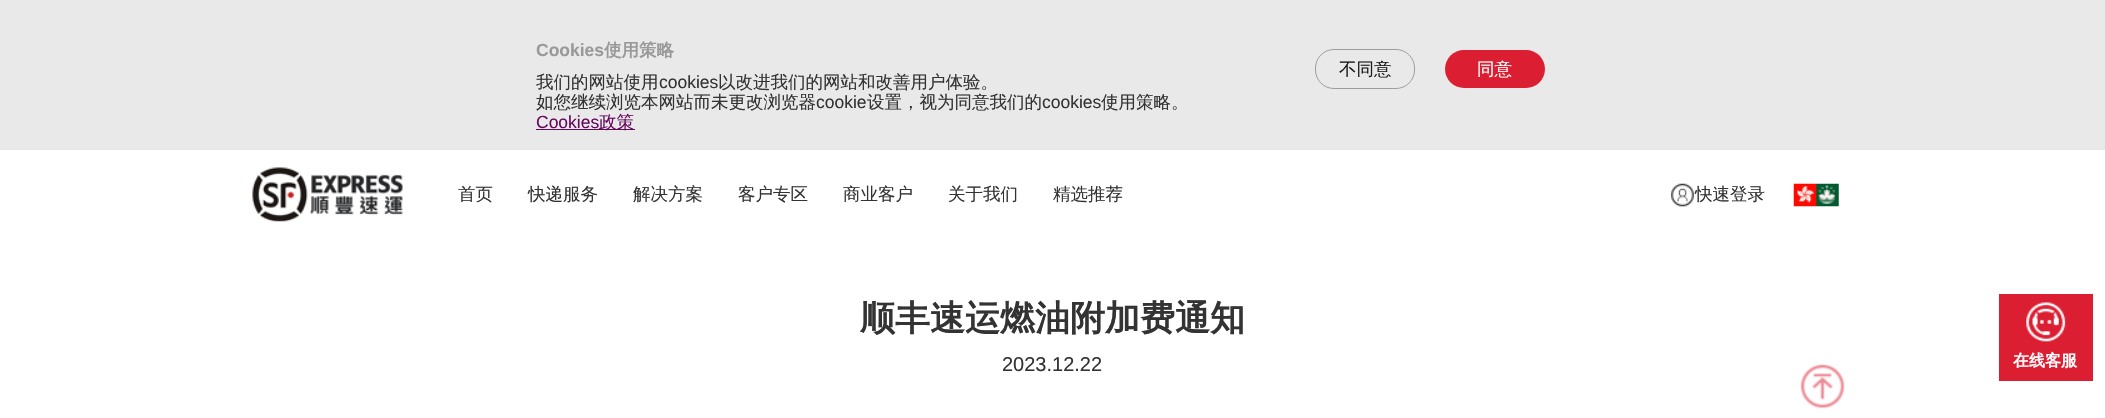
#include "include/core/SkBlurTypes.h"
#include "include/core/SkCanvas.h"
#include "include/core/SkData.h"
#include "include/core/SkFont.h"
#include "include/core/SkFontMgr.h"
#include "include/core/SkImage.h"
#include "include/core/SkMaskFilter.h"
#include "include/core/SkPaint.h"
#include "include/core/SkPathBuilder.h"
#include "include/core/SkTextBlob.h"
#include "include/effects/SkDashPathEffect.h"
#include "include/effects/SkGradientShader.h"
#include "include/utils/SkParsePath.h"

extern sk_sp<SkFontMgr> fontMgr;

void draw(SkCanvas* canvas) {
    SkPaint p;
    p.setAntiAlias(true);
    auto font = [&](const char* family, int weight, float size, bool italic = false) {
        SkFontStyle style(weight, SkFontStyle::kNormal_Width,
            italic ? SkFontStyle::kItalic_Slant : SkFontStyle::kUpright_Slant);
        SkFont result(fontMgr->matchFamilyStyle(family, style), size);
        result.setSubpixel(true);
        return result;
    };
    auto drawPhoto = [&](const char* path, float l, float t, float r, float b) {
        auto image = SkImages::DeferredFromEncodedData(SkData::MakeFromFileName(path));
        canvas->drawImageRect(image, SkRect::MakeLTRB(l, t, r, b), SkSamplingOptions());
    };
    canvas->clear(0xFFFFFFFF);
    p.setColor(0xFFE9E9E9);
    canvas->drawRect(SkRect::MakeLTRB(0, 0, 2105, 150), p);
    auto font1 = font("Liberation Sans", 700, 17.5f);
    p.setColor(0xFF999999);
    canvas->drawString("Cookies", 536, 56, font1, p);
    auto font2 = font("WenQuanYi Zen Hei", 700, 17.5f);
    canvas->drawString("使用策略", 604, 56, font2, p);
    auto font3 = font("WenQuanYi Zen Hei", 500, 17.5f);
    p.setColor(0xFF333333);
    canvas->drawString("我们的网站使用", 536, 88, font3, p);
    auto font4 = font("Liberation Sans", 400, 17.5f);
    canvas->drawString("cookies", 659, 88, font4, p);
    canvas->drawString("以改进我们的网站和改善用户体验。", 718, 88, font3, p);
    canvas->drawString("如您继续浏览本网站而未更改浏览器", 536, 108, font3, p);
    canvas->drawString("cookie", 816, 108, font4, p);
    canvas->drawString("设置，视为同意我们的", 867, 108, font3, p);
    canvas->drawString("cookies", 1042, 108, font4, p);
    canvas->drawString("使用策略。", 1101, 108, font3, p);
    p.setColor(0xFF66095E);
    canvas->drawString("Cookies", 536, 128, font4, p);
    canvas->drawRect(SkRect::MakeLTRB(536, 129, 635, 130), p);
    canvas->drawString("政策", 599, 128, font3, p);
    p.setStyle(SkPaint::kStroke_Style);
    p.setStrokeWidth(1);
    p.setColor(0xFF9E9E9E);
    canvas->drawRoundRect(SkRect::MakeLTRB(1315.5f, 49.5f, 1414.5f, 88.5f), 18.5f, 18.5f, p);
    p.setStyle(SkPaint::kFill_Style);
    p.setColor(0xFF1E1D1D);
    canvas->drawString("不同意", 1339, 75, font3, p);
    p.setColor(0xFFDC1E32);
    canvas->drawRoundRect(SkRect::MakeLTRB(1445, 50, 1545, 88), 19, 19, p);
    p.setColor(0xFFFFFFFF);
    canvas->drawString("同意", 1477, 75, font3, p);
    drawPhoto("media/1.png", 252, 167, 403, 222);
    p.setColor(0xFF333333);
    {
        const struct { const char* s; float x, y; } items[] = {
            {"首页", 458, 200},
            {"快递服务", 528, 200},
            {"解决方案", 633, 200},
            {"客户专区", 738, 200},
            {"商业客户", 843, 200},
            {"关于我们", 948, 200},
            {"精选推荐", 1053, 200},
        };
        for (auto [s, x, y] : items) {
            canvas->drawString(s, x, y, font3, p);
        }
    }
    drawPhoto("media/2.png", 1671, 183, 1694, 207);
    canvas->drawString("快速登录", 1695, 200, font3, p);
    drawPhoto("media/3.png", 1793, 183, 1839, 207);
    auto font5 = font("WenQuanYi Zen Hei", 700, 35);
    canvas->drawString("顺丰速运燃油附加费通知", 860, 330, font5, p);
    auto font6 = font("Liberation Sans", 400, 20);
    canvas->drawString("2023.12.22", 1002, 371, font6, p);
    p.setColor(0xFFDC1E32);
    canvas->drawRect(SkRect::MakeLTRB(1999, 294, 2093, 381), p);
    drawPhoto("media/4.png", 2026, 302, 2066, 342);
    auto font7 = font("WenQuanYi Zen Hei", 700, 16);
    p.setColor(0xFFFFFFFF);
    canvas->drawString("在线客服", 2013, 366, font7, p);
    drawPhoto("media/5.png", 1800, 364, 1845, 409);
}
